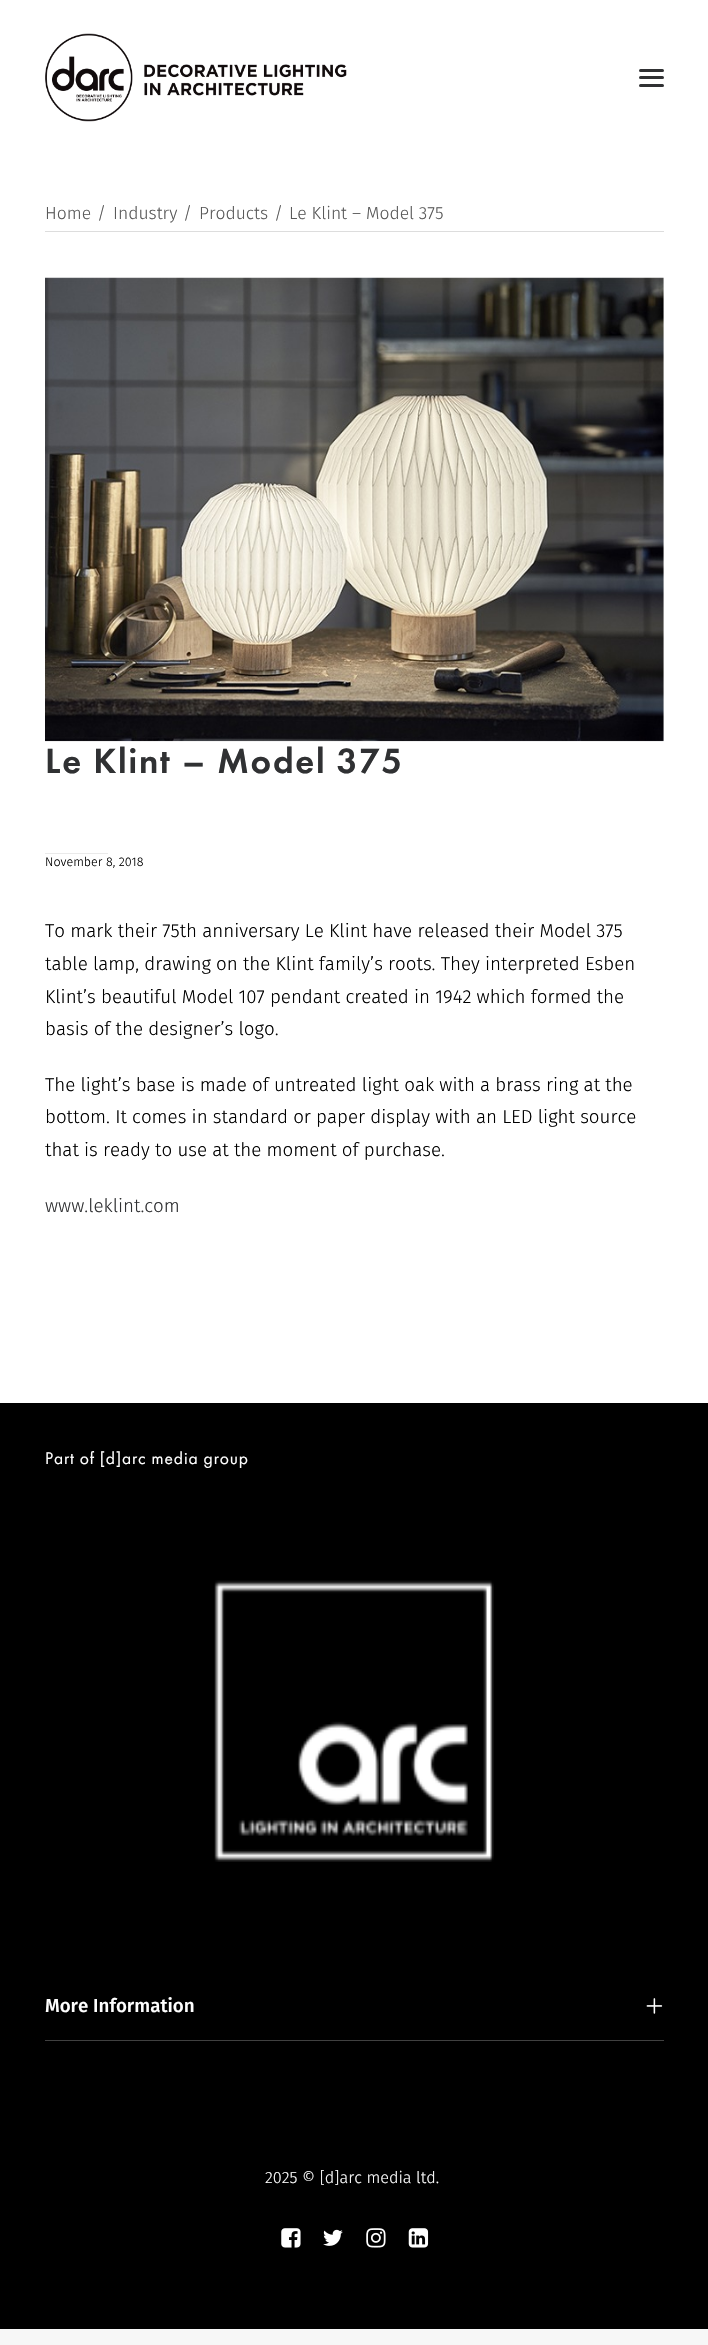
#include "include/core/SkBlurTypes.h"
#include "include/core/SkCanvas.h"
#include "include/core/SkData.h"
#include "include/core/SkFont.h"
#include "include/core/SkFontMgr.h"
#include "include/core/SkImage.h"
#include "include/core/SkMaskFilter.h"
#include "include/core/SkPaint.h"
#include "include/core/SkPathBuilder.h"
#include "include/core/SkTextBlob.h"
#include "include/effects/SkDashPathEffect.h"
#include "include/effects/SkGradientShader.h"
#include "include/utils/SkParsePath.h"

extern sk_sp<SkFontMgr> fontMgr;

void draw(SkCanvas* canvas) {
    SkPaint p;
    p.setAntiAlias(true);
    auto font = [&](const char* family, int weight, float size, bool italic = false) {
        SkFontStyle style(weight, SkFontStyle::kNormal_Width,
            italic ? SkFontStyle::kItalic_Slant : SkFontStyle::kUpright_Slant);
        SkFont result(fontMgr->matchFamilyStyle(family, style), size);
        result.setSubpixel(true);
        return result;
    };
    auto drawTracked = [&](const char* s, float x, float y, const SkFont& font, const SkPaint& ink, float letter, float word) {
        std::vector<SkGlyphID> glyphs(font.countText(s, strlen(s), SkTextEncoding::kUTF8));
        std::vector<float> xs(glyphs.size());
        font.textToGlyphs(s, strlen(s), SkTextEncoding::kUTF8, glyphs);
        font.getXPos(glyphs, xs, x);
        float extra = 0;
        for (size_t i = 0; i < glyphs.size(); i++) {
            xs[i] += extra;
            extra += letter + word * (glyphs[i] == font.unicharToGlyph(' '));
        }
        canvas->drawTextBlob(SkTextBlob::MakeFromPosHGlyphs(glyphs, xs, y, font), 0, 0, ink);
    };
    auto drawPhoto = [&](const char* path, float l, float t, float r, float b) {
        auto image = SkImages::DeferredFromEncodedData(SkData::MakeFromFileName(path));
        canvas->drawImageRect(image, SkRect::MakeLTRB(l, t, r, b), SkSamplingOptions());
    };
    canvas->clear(0xFFF7F7F7);
    p.setColor(0xFFFFFFFF);
    canvas->drawRect(SkRect::MakeLTRB(0, 0, 708, 1403), p);
    drawPhoto("media/1.png", 45, 33, 347, 122);
    p.setColor(0xFF303133);
    canvas->drawRoundRect(SkRect::MakeLTRB(639, 76, 664, 79), 1.5f, 1.5f, p);
    canvas->drawRoundRect(SkRect::MakeLTRB(639, 69, 664, 72), 1.5f, 1.5f, p);
    canvas->drawRoundRect(SkRect::MakeLTRB(639, 84, 664, 87), 1.5f, 1.5f, p);
    auto font1 = font("Fira Sans", 300, 17.5f);
    p.setColor(0xFF595959);
    {
        const struct { const char* s; float x, y; } items[] = {
            {"Home", 45, 219},
            {"/", 97, 219},
            {"Industry", 113, 219},
            {"/", 183, 219},
            {"Products", 199, 219},
            {"/", 274, 219},
            {"Le Klint – Model 375", 289, 219},
        };
        for (auto [s, x, y] : items) {
            canvas->drawString(s, x, y, font1, p);
        }
    }
    p.setColor(0xFFDDDDDD);
    canvas->drawRect(SkRect::MakeLTRB(45, 231, 664, 232), p);
    drawPhoto("media/2.png", 45, 277, 664, 742);
    auto font2 = font("Futura PT", 500, 36.25f);
    p.setColor(0xFF303133);
    drawTracked("Le Klint – Model 375", 45, 773, font2, p, 1.8f, 0);
    p.setColor(0xFFEAEAEA);
    canvas->drawRect(SkRect::MakeLTRB(45, 853, 108, 854), p);
    auto font3 = font("Fira Sans", 300, 12.5f);
    p.setColor(0xFF000000);
    canvas->drawString("November 8, 2018", 45, 866, font3, p);
    auto font4 = font("Fira Sans", 300, 18.75f);
    {
        const struct { const char* s; float x, y; } items[] = {
            {"To mark their 75th anniversary Le Klint have released their Model 375", 45, 937},
            {"table lamp, drawing on the Klint family’s roots. They interpreted Esben", 45, 970},
            {"Klint’s beautiful Model 107 pendant created in 1942 which formed the", 45, 1003},
            {"basis of the designer’s logo.", 45, 1035},
            {"The light’s base is made of untreated light oak with a brass ring at the", 45, 1091},
            {"bottom. It comes in standard or paper display with an LED light source", 45, 1123},
            {"that is ready to use at the moment of purchase.", 45, 1156},
        };
        for (auto [s, x, y] : items) {
            canvas->drawString(s, x, y, font4, p);
        }
    }
    p.setColor(0xFF303133);
    canvas->drawString("www.leklint.com", 45, 1212, font4, p);
    p.setColor(0xFF000000);
    canvas->drawRect(SkRect::MakeLTRB(0, 1403, 708, 2329), p);
    auto font5 = font("Futura PT", 400, 17.5f);
    p.setColor(0xFFFFFFFF);
    drawTracked("Part of [d]arc media group", 45, 1464, font5, p, 0.9f, 0);
    drawPhoto("media/3.png", 214, 1580, 494, 1862);
    p.setColor(0xFF404040);
    canvas->drawRect(SkRect::MakeLTRB(45, 2040, 664, 2041), p);
    auto font6 = font("Fira Sans", 500, 18.75f);
    p.setColor(0xFFFFFFFF);
    canvas->drawString("More Information", 45, 2012, font6, p);
    drawPhoto("media/4.png", 646, 1998, 663, 2014);
    auto font7 = font("Fira Sans", 300, 16.25f);
    canvas->drawString("2025 © [d]arc media ltd.", 265, 2183, font7, p);
    drawPhoto("media/5.png", 281, 2228, 301, 2248);
    drawPhoto("media/6.png", 323, 2229, 343, 2246);
    drawPhoto("media/7.png", 366, 2228, 386, 2248);
    drawPhoto("media/8.png", 408, 2228, 429, 2248);
}
